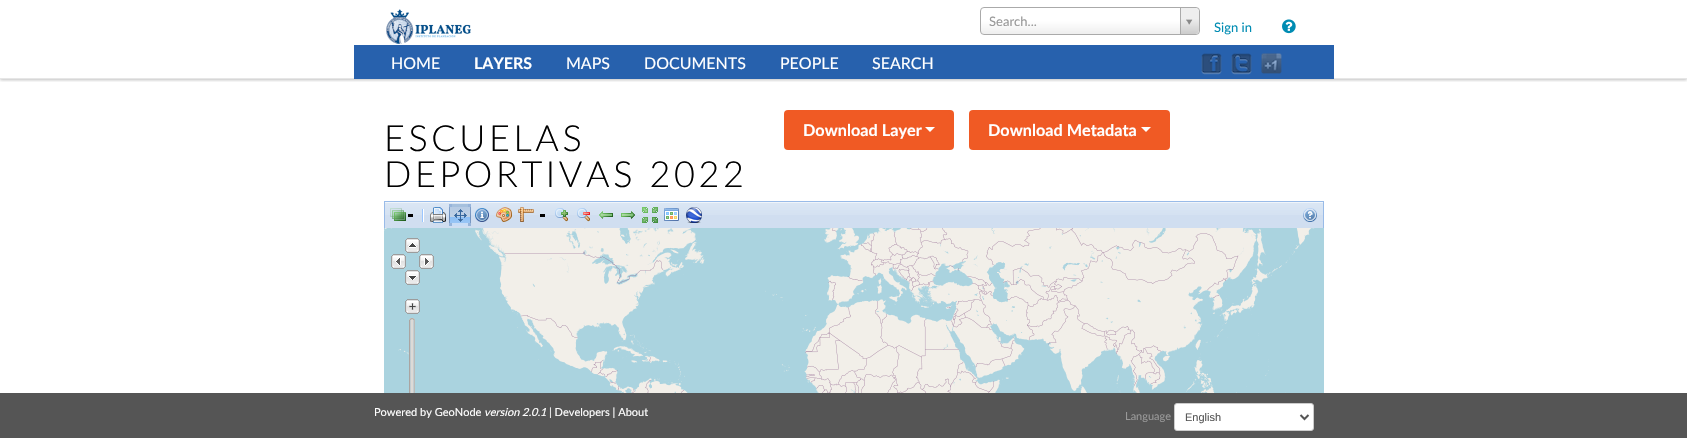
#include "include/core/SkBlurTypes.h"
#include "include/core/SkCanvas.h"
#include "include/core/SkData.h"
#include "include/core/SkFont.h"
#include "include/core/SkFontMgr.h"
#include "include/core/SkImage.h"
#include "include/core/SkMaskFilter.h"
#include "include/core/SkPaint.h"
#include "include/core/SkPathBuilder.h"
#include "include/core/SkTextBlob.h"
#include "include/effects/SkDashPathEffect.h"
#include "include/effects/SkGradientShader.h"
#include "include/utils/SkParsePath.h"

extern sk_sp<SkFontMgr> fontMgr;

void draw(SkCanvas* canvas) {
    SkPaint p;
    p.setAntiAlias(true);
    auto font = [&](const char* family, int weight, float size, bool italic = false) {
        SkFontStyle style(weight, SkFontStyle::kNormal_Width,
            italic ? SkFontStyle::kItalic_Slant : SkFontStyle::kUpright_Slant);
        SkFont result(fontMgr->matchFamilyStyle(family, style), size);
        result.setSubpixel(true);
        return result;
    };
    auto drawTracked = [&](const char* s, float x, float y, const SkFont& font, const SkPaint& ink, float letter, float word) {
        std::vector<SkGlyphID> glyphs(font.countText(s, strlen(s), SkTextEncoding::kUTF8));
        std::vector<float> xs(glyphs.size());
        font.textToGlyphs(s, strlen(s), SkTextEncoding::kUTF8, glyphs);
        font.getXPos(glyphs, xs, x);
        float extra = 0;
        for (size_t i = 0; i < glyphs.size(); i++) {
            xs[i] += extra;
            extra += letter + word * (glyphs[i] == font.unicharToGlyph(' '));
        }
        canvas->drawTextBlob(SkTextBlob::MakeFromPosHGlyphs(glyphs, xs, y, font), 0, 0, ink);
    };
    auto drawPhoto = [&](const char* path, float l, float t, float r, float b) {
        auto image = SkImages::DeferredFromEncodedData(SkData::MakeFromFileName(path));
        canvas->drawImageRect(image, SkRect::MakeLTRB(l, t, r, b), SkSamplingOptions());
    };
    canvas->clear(0xFFFFFFFF);
    canvas->save();
    canvas->clipRect(SkRect::MakeLTRB(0, 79, 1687, 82));
    p.setColor(0x40000000);
    p.setMaskFilter(SkMaskFilter::MakeBlur(kNormal_SkBlurStyle, 1.5f));
    canvas->drawRect(SkRect::MakeLTRB(0, 1, 1687, 80), p);
    p.setMaskFilter(nullptr);
    canvas->restore();
    p.setColor(0xFFE6E6E6);
    canvas->drawRect(SkRect::MakeLTRB(0, 78, 1687, 79), p);
    drawPhoto("media/1.png", 386, 9, 471, 44);
    {
        const SkColor colors[] = {0xFFEEEEEE, 0xFFFFFFFF};
        const float stops[] = {0, 0.5f};
        const SkPoint ends[] = {{981, 34}, {981, 8}};
        p.setShader(SkGradientShader::MakeLinear(ends, colors, stops, 2, SkTileMode::kClamp));
        p.setAlpha(255);
    }
    canvas->drawRoundRect(SkRect::MakeLTRB(981, 8, 1199, 34), 3, 3, p);
    p.setStyle(SkPaint::kStroke_Style);
    p.setStrokeWidth(1);
    p.setShader(nullptr);
    p.setColor(0xFFAAAAAA);
    canvas->drawRoundRect(SkRect::MakeLTRB(980.5f, 7.5f, 1199.5f, 34.5f), 3.5f, 3.5f, p);
    auto font1 = font("Lato", 400, 13);
    p.setStyle(SkPaint::kFill_Style);
    p.setColor(0xFF999999);
    canvas->drawString("Search...", 989, 26, font1, p);
    canvas->save();
    canvas->clipPath(SkPathBuilder().moveTo(984, 8).lineTo(1196, 8).cubicTo(1197.5f, 8, 1199, 9.5f, 1199, 11).lineTo(1199, 31).cubicTo(1199, 32.5f, 1197.5f, 34, 1196, 34).lineTo(984, 34).cubicTo(982.5f, 34, 981, 32.5f, 981, 31).lineTo(981, 11).cubicTo(981, 9.5f, 982.5f, 8, 984, 8).close().detach(), true);
    {
        const SkColor colors[] = {0xFFCCCCCC, 0xFFEEEEEE};
        const float stops[] = {0, 0.6f};
        const SkPoint ends[] = {{1181, 34}, {1181, 8}};
        p.setShader(SkGradientShader::MakeLinear(ends, colors, stops, 2, SkTileMode::kClamp));
        p.setAlpha(255);
    }
    canvas->drawPath(SkPathBuilder().moveTo(1180, 8).lineTo(1195, 8).cubicTo(1197, 8, 1199, 10, 1199, 12).lineTo(1199, 30).cubicTo(1199, 32, 1197, 34, 1195, 34).lineTo(1180, 34).close().detach(), p);
    canvas->restore();
    p.setShader(nullptr);
    p.setColor(0xFFAAAAAA);
    canvas->drawRect(SkRect::MakeLTRB(1180, 8, 1181, 34), p);
    drawPhoto("media/2.png", 1186, 19, 1193, 25);
    p.setColor(0xFF008CB3);
    canvas->drawString("Sign in", 1214, 32, font1, p);
    drawPhoto("media/3.png", 1282, 19, 1296, 34);
    p.setColor(0xFF2761AD);
    canvas->drawRect(SkRect::MakeLTRB(354, 45, 1334, 79), p);
    auto font2 = font("Lato", 400, 16);
    p.setColor(0xFFFFFFFF);
    canvas->drawString("HOME", 391, 69, font2, p);
    auto font3 = font("Lato", 700, 16);
    canvas->drawString("LAYERS", 474, 69, font3, p);
    {
        const struct { const char* s; float x, y; } items[] = {
            {"MAPS", 566, 69},
            {"DOCUMENTS", 644, 69},
            {"PEOPLE", 780, 69},
            {"SEARCH", 872, 69},
        };
        for (auto [s, x, y] : items) {
            canvas->drawString(s, x, y, font2, p);
        }
    }
    drawPhoto("media/4.png", 1201, 53, 1222, 75);
    drawPhoto("media/5.png", 1231, 53, 1252, 75);
    drawPhoto("media/6.png", 1261, 53, 1282, 74);
    auto font4 = font("Lato", 300, 36);
    p.setColor(0xFF000000);
    drawTracked("ESCUELAS", 384, 151, font4, p, 3.6f, 0);
    drawTracked("DEPORTIVAS 2022", 384, 187, font4, p, 3.6f, 0);
    p.setColor(0xFFF05A24);
    canvas->drawRoundRect(SkRect::MakeLTRB(784, 110, 954, 150), 4, 4, p);
    auto font5 = font("Lato", 700, 16.25f);
    p.setColor(0xFFFFFFFF);
    canvas->drawString("Download Layer", 803, 136, font5, p);
    canvas->drawPath(SkPathBuilder().moveTo(925, 127).lineTo(935, 127).lineTo(930, 132).close().detach(), p);
    p.setColor(0xFFF05A24);
    canvas->drawRoundRect(SkRect::MakeLTRB(969, 110, 1170, 150), 4, 4, p);
    p.setColor(0xFFFFFFFF);
    canvas->drawString("Download Metadata", 988, 136, font5, p);
    canvas->drawPath(SkPathBuilder().moveTo(1141, 127).lineTo(1151, 127).lineTo(1146, 132).close().detach(), p);
    p.setColor(0xFFD0DEF0);
    canvas->drawRect(SkRect::MakeLTRB(385, 215, 1323, 228), p);
    drawPhoto("media/7.png", 385, 202, 1323, 215);
    {
        const struct { float l, t, r, b; SkColor color; } items[] = {
            {384, 201, 1324, 202, 0xFF99BBE8},
            {1323, 201, 1324, 228, 0xFF99BBE8},
            {384, 201, 385, 228, 0xFF99BBE8},
            {408, 214, 413, 217, 0xFF000000},
        };
        for (auto [l, t, r, b, color] : items) {
            p.setColor(color);
            canvas->drawRect(SkRect::MakeLTRB(l, t, r, b), p);
        }
    }
    drawPhoto("media/8.png", 390, 208, 406, 221);
    drawPhoto("media/9.png", 422, 209, 424, 222);
    drawPhoto("media/10.png", 430, 207, 446, 223);
    {
        const struct { float l, t, r, b; SkColor color; } items[] = {
            {449, 204, 452, 207, 0xFF96B4DA},
            {452, 204, 468, 207, 0xFFA5C0DD},
            {468, 204, 471, 207, 0xFF96B4DA},
        };
        for (auto [l, t, r, b, color] : items) {
            p.setColor(color);
            canvas->drawRect(SkRect::MakeLTRB(l, t, r, b), p);
        }
    }
    drawPhoto("media/11.png", 449, 207, 452, 223);
    drawPhoto("media/12.png", 452, 207, 468, 223);
    drawPhoto("media/13.png", 454, 209, 467, 222);
    drawPhoto("media/14.png", 468, 207, 471, 223);
    {
        const struct { float l, t, r, b; SkColor color; } items[] = {
            {449, 223, 452, 226, 0xFF96B4DA},
            {452, 223, 468, 226, 0xFFC9DDF6},
            {468, 223, 471, 226, 0xFF96B4DA},
        };
        for (auto [l, t, r, b, color] : items) {
            p.setColor(color);
            canvas->drawRect(SkRect::MakeLTRB(l, t, r, b), p);
        }
    }
    drawPhoto("media/15.png", 475, 208, 489, 222);
    drawPhoto("media/16.png", 496, 207, 512, 222);
    p.setColor(0xFF000000);
    canvas->drawRect(SkRect::MakeLTRB(540, 214, 545, 217), p);
    drawPhoto("media/17.png", 518, 207, 534, 222);
    drawPhoto("media/18.png", 555, 208, 568, 222);
    drawPhoto("media/19.png", 577, 208, 590, 222);
    drawPhoto("media/20.png", 599, 211, 613, 219);
    drawPhoto("media/21.png", 621, 211, 635, 219);
    drawPhoto("media/22.png", 642, 207, 658, 223);
    drawPhoto("media/23.png", 664, 208, 679, 221);
    drawPhoto("media/24.png", 686, 207, 702, 223);
    drawPhoto("media/25.png", 1303, 208, 1317, 222);
    drawPhoto("media/26.png", 384, 228, 598, 393);
    drawPhoto("media/27.png", 598, 228, 854, 393);
    drawPhoto("media/28.png", 854, 228, 1110, 393);
    drawPhoto("media/29.png", 1110, 228, 1324, 393);
    drawPhoto("media/30.png", 405, 238, 420, 253);
    drawPhoto("media/31.png", 391, 254, 406, 269);
    drawPhoto("media/32.png", 419, 254, 434, 269);
    drawPhoto("media/33.png", 405, 270, 420, 285);
    drawPhoto("media/34.png", 405, 299, 420, 314);
    drawPhoto("media/35.png", 409, 318, 415, 325);
    drawPhoto("media/36.png", 409, 325, 415, 393);
    p.setColor(0xFF555555);
    canvas->drawRect(SkRect::MakeLTRB(0, 393, 1687, 438), p);
    auto font6 = font("Lato", 400, 11);
    p.setColor(0xFFFFFFFF);
    canvas->drawString("Powered by GeoNode", 374, 416, font6, p);
    auto font7 = font("Lato", 400, 11, true);
    canvas->drawString("version 2.0.1", 484, 416, font7, p);
    canvas->drawString("| Developers | About", 549, 416, font6, p);
    p.setColor(0xFF999999);
    canvas->drawString("Language", 1125, 420, font6, p);
    p.setColor(0xFFFFFFFF);
    canvas->drawRoundRect(SkRect::MakeLTRB(1174.5f, 403.5f, 1313.5f, 430.5f), 2.5f, 2.5f, p);
    p.setStyle(SkPaint::kStroke_Style);
    p.setColor(0xFFCCCCCC);
    canvas->drawRoundRect(SkRect::MakeLTRB(1174.5f, 403.5f, 1313.5f, 430.5f), 2.5f, 2.5f, p);
    p.setStrokeWidth(2);
    p.setColor(0xFF555555);
    canvas->drawPath(SkPathBuilder().moveTo(1300.5f, 415).lineTo(1304.5f, 419).lineTo(1308.5f, 415).detach(), p);
    auto font8 = font("Liberation Sans", 400, 11);
    p.setStyle(SkPaint::kFill_Style);
    canvas->drawString("English", 1185, 421, font8, p);
}
